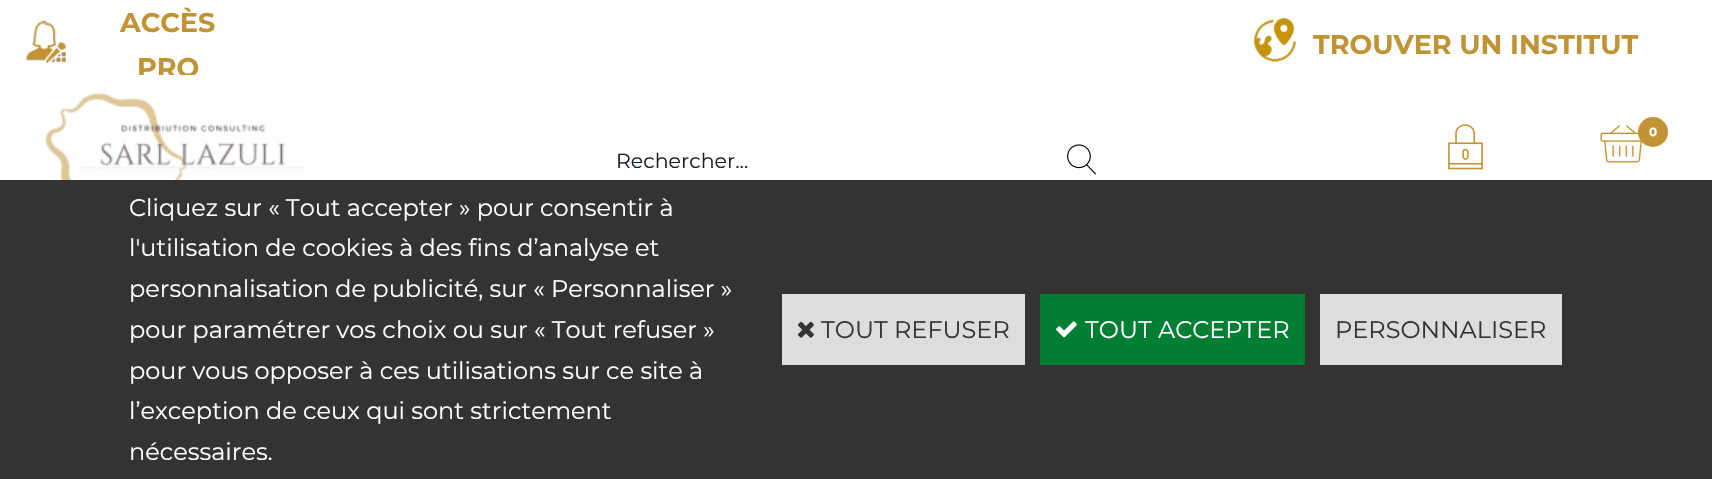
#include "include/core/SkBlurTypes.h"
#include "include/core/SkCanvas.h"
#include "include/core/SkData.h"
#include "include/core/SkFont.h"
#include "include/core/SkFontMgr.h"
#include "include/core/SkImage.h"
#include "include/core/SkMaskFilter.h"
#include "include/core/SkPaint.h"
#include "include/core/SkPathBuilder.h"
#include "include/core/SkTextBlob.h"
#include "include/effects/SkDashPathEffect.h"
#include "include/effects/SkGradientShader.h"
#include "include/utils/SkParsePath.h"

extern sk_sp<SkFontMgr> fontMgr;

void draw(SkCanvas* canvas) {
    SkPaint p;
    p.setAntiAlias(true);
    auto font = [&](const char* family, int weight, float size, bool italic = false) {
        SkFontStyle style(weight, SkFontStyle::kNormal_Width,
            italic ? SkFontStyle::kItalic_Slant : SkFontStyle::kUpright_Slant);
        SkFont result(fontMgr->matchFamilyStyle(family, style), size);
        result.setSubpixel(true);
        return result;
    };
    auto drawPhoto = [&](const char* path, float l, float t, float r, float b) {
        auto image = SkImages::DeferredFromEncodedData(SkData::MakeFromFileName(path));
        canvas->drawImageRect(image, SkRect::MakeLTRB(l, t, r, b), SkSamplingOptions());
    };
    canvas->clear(0xFFFFFFFF);
    drawPhoto("media/1.png", 26, 20, 66, 63);
    auto font1 = font("Montserrat", 700, 27);
    p.setColor(0xFFC09335);
    canvas->drawString("ACCÈS", 120, 32, font1, p);
    canvas->save();
    canvas->clipRect(SkRect::MakeLTRB(0, 0, 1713, 75));
    canvas->drawString("PRO", 137, 77, font1, p);
    canvas->restore();
    drawPhoto("media/2.png", 1254, 18, 1296, 62);
    canvas->drawString("TROUVER UN INSTITUT", 1313, 54, font1, p);
    drawPhoto("media/3.png", 45, 92, 306, 180);
    drawPhoto("media/4.png", 1448, 124, 1483, 170);
    drawPhoto("media/5.png", 1600, 125, 1642, 163);
    canvas->drawCircle(1653, 132, 15, p);
    auto font2 = font("Montserrat", 700, 12);
    p.setColor(0xFFFFFFFF);
    canvas->drawString("0", 1649, 136, font2, p);
    auto font3 = font("Montserrat", 400, 20.5f);
    p.setColor(0xFF1A1F26);
    canvas->drawString("Rechercher...", 616, 168, font3, p);
    drawPhoto("media/6.png", 1067, 144, 1096, 175);
    p.setColor(0xFF333333);
    canvas->drawRect(SkRect::MakeLTRB(0, 180, 1712, 479), p);
    auto font4 = font("Montserrat", 400, 24);
    p.setColor(0xFFFFFFFF);
    {
        const struct { const char* s; float x, y; } items[] = {
            {"Cliquez sur « Tout accepter » pour consentir à", 129, 216},
            {"l'utilisation de cookies à des fins d’analyse et", 129, 256},
            {"personnalisation de publicité, sur « Personnaliser »", 129, 297},
            {"pour paramétrer vos choix ou sur « Tout refuser »", 129, 338},
            {"pour vous opposer à ces utilisations sur ce site à", 129, 379},
            {"l’exception de ceux qui sont strictement", 129, 419},
            {"nécessaires.", 129, 460},
        };
        for (auto [s, x, y] : items) {
            canvas->drawString(s, x, y, font4, p);
        }
    }
    p.setColor(0xFFDDDDDD);
    canvas->drawRect(SkRect::MakeLTRB(782, 294, 1025, 365), p);
    drawPhoto("media/7.png", 798, 321, 814, 338);
    p.setColor(0xFF333333);
    canvas->drawString("TOUT REFUSER", 821, 338, font4, p);
    p.setColor(0xFF007E33);
    canvas->drawRect(SkRect::MakeLTRB(1040, 294, 1305, 365), p);
    drawPhoto("media/8.png", 1056, 321, 1077, 338);
    p.setColor(0xFFFFFFFF);
    canvas->drawString("TOUT ACCEPTER", 1085, 338, font4, p);
    p.setColor(0xFFDDDDDD);
    canvas->drawRect(SkRect::MakeLTRB(1320, 294, 1562, 365), p);
    p.setColor(0xFF333333);
    canvas->drawString("PERSONNALISER", 1335, 338, font4, p);
}
